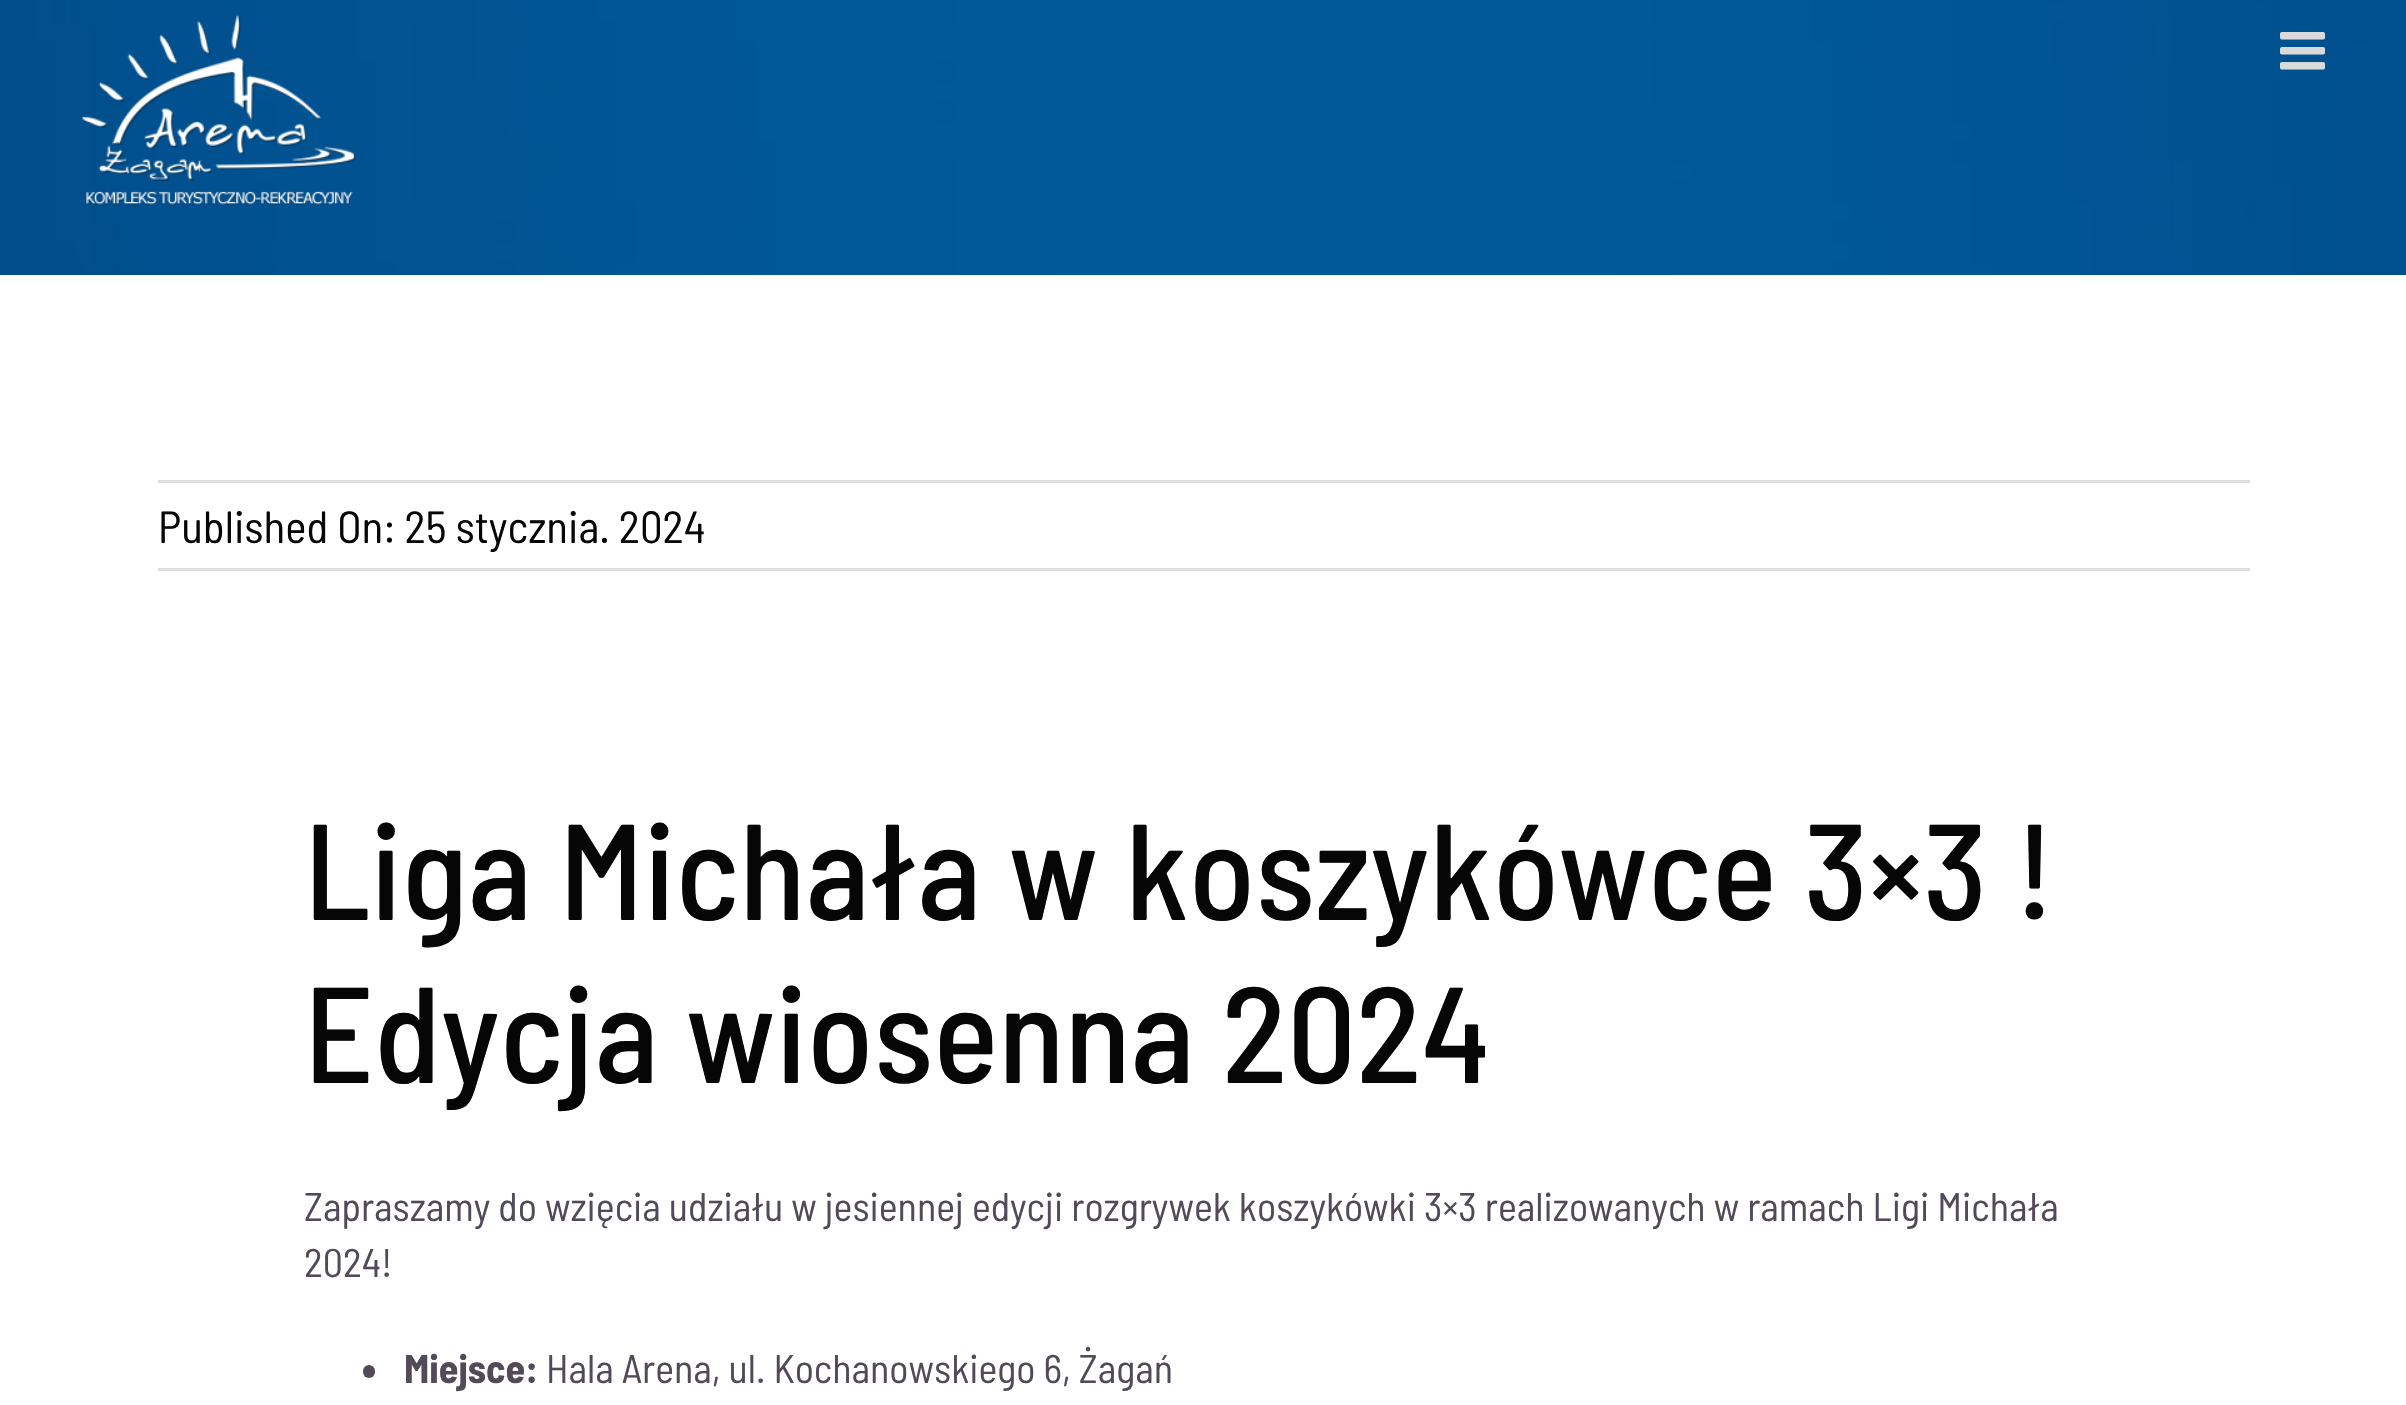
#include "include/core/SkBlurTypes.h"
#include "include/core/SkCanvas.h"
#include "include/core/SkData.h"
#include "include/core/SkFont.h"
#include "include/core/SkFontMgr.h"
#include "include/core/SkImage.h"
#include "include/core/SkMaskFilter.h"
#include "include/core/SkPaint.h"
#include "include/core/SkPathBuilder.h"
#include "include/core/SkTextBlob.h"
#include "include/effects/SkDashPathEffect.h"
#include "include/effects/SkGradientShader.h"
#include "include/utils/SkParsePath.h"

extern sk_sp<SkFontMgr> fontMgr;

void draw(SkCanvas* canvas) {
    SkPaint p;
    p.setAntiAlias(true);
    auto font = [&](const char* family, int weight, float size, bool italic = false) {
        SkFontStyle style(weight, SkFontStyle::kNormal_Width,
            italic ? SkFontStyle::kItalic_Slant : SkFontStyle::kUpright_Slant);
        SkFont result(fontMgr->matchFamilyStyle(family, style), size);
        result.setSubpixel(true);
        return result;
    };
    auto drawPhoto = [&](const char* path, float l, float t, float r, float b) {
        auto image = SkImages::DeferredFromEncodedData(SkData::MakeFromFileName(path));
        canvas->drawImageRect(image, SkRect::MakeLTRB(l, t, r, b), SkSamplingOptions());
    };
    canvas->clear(0xFFFFFFFF);
    drawPhoto("media/1.png", 0, 0, 2406, 275);
    drawPhoto("media/2.png", 82, 15, 356, 206);
    drawPhoto("media/3.png", 2280, 32, 2325, 70);
    p.setColor(0xFFE0DEDE);
    canvas->drawRect(SkRect::MakeLTRB(158, 480, 2250, 483), p);
    canvas->drawRect(SkRect::MakeLTRB(158, 568, 2250, 571), p);
    auto font1 = font("Barlow Semi Condensed", 400, 45);
    p.setColor(0xFF060607);
    canvas->drawString("Published On: 25 stycznia. 2024", 158, 543, font1, p);
    auto font2 = font("Barlow Semi Condensed", 500, 136);
    canvas->drawString("Liga Michała w koszykówce 3×3 !", 304, 920, font2, p);
    canvas->drawString("Edycja wiosenna 2024", 304, 1083, font2, p);
    auto font3 = font("Barlow Semi Condensed", 400, 40);
    p.setColor(0xFF524A59);
    canvas->drawString("Zapraszamy do wzięcia udziału w jesiennej edycji rozgrywek koszykówki 3×3 realizowanych w ramach Ligi Michała", 304, 1221, font3, p);
    canvas->drawString("2024!", 304, 1277, font3, p);
    canvas->drawRoundRect(SkRect::MakeLTRB(363, 1365, 375, 1378), 6, 6, p);
    auto font4 = font("Barlow Semi Condensed", 700, 40);
    canvas->drawString("Miejsce:", 404, 1383, font4, p);
    canvas->drawString("Hala Arena, ul. Kochanowskiego 6, Żagań", 546, 1383, font3, p);
}
